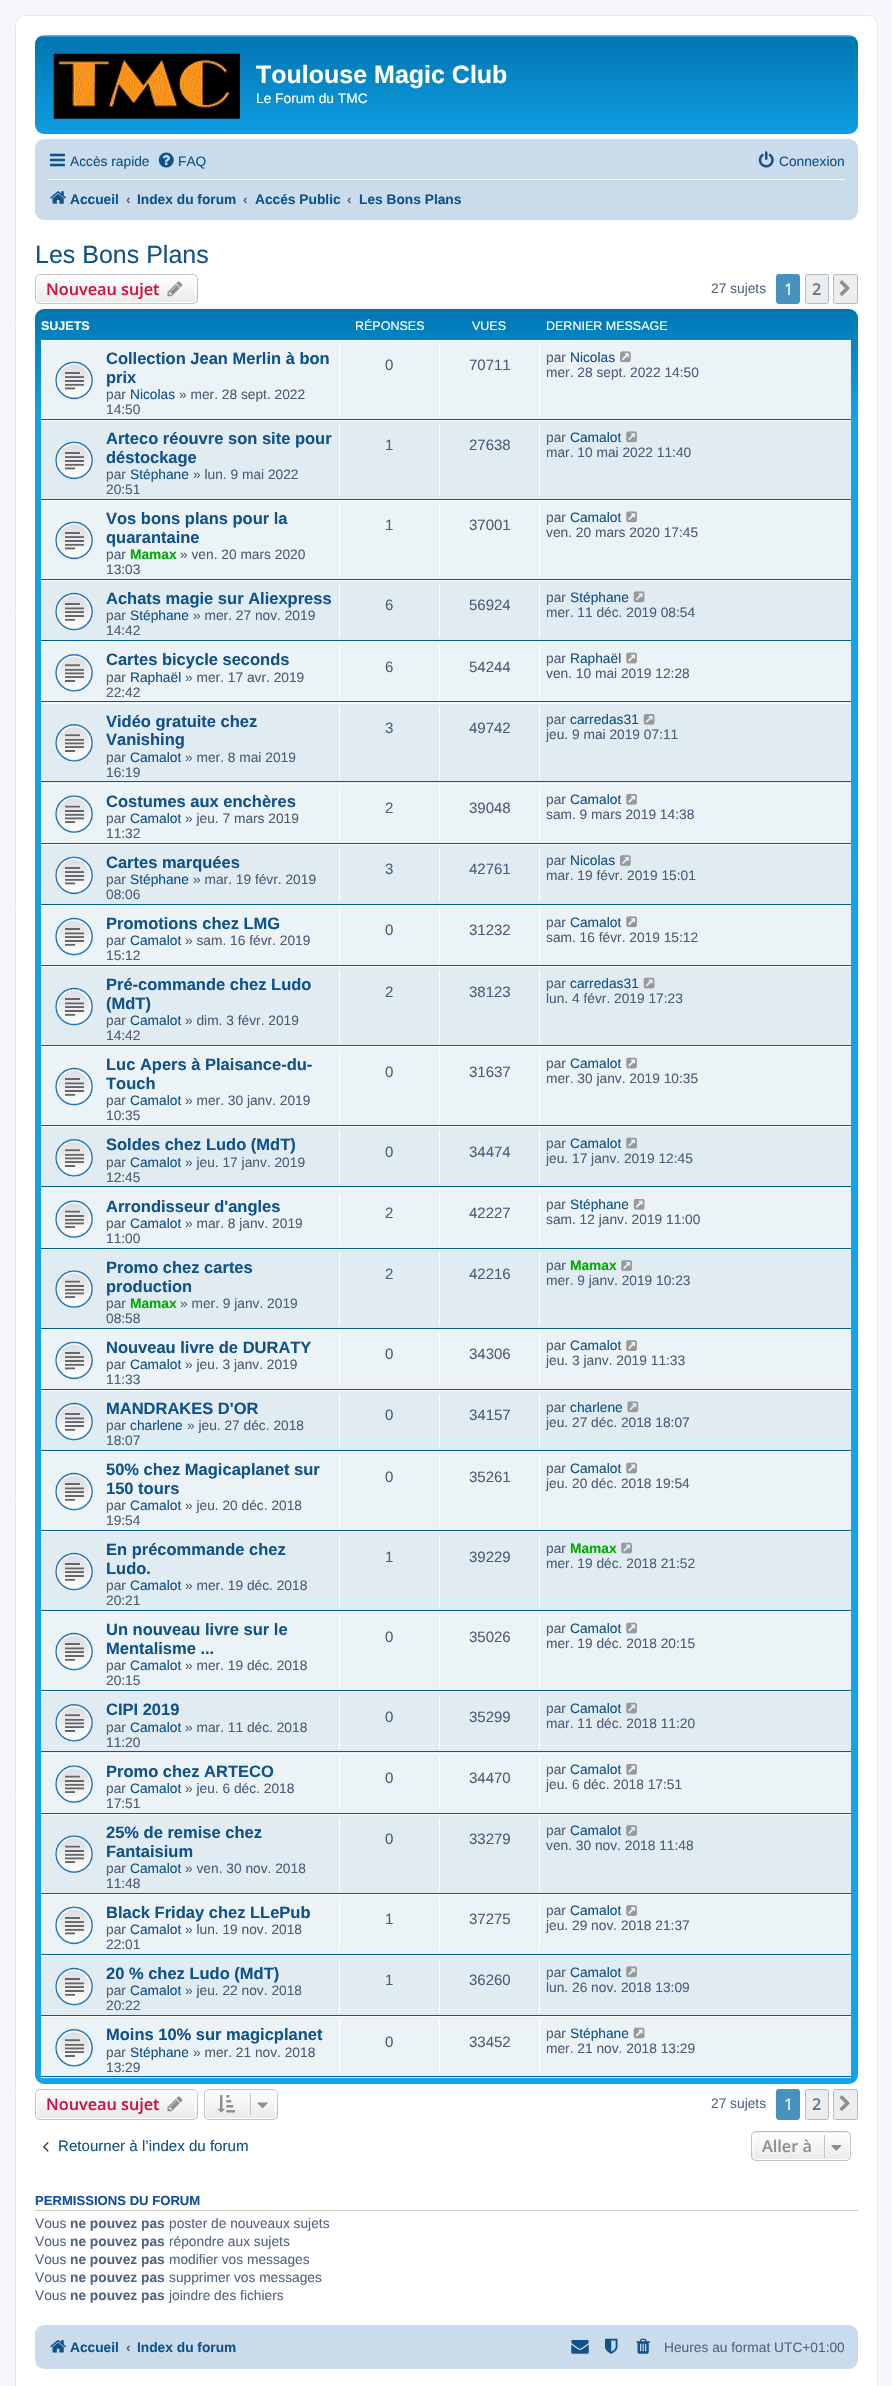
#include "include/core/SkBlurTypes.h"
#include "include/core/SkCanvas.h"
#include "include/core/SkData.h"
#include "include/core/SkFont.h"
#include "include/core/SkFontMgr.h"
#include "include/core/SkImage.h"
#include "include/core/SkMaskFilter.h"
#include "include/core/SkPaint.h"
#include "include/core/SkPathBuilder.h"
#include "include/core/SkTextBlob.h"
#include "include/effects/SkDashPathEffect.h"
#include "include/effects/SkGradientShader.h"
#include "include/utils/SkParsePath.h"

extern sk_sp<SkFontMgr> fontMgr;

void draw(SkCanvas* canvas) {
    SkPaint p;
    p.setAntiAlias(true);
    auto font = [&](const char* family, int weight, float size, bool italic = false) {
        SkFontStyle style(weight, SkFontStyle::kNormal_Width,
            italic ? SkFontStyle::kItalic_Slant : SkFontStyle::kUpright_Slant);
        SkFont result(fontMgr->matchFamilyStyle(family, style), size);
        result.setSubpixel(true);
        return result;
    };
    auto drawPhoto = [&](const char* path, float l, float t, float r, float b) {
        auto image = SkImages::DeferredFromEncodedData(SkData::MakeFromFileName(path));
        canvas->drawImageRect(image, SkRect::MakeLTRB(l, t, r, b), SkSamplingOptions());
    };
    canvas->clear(0xFFF5F7FA);
    p.setColor(0xFFFFFFFF);
    canvas->drawRoundRect(SkRect::MakeLTRB(15.5f, 15.5f, 877.5f, 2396.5f), 9.5f, 9.5f, p);
    p.setStyle(SkPaint::kStroke_Style);
    p.setStrokeWidth(1);
    p.setColor(0xFFE6E9ED);
    canvas->drawRoundRect(SkRect::MakeLTRB(15.5f, 15.5f, 877.5f, 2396.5f), 9.5f, 9.5f, p);
    p.setStyle(SkPaint::kFill_Style);
    {
        const SkColor colors[] = {0xFF6ACEFF, 0xFF0076B1, 0xFF12A3EB};
        const float stops[] = {0, 0.02f, 1};
        const SkPoint ends[] = {{446, 35}, {446, 150}};
        p.setShader(SkGradientShader::MakeLinear(ends, colors, stops, 3, SkTileMode::kClamp));
        p.setAlpha(255);
    }
    canvas->drawRoundRect(SkRect::MakeLTRB(35, 35, 858, 134), 9, 9, p);
    drawPhoto("media/1.png", 53, 53, 240, 119);
    auto font1 = font("Liberation Sans", 700, 25);
    p.setShader(nullptr);
    p.setColor(0xFFFFFFFF);
    canvas->drawString("Toulouse Magic Club", 256, 83, font1, p);
    auto font2 = font("Liberation Sans", 400, 13.75f);
    canvas->drawString("Le Forum du TMC", 256, 103, font2, p);
    p.setColor(0xFFCADCEB);
    canvas->drawRoundRect(SkRect::MakeLTRB(35, 139, 858, 220), 9, 9, p);
    drawPhoto("media/2.png", 50, 153, 65, 167);
    p.setColor(0xFF105289);
    canvas->drawString("Accès rapide", 70, 166, font2, p);
    drawPhoto("media/3.png", 158, 152, 174, 168);
    canvas->drawString("FAQ", 178, 166, font2, p);
    drawPhoto("media/4.png", 758, 151, 774, 168);
    canvas->drawString("Connexion", 779, 166, font2, p);
    p.setColor(0xFFFFFFFF);
    canvas->drawRect(SkRect::MakeLTRB(48, 179, 845, 180), p);
    drawPhoto("media/5.png", 50, 191, 66, 204);
    auto font3 = font("Liberation Sans", 700, 13.75f);
    p.setColor(0xFF105289);
    canvas->drawString("Accueil", 70, 204, font3, p);
    p.setColor(0xFF536482);
    canvas->drawString("‹", 126, 204, font3, p);
    p.setColor(0xFF105289);
    canvas->drawString("Index du forum", 137, 204, font3, p);
    p.setColor(0xFF536482);
    canvas->drawString("‹", 243, 204, font3, p);
    p.setColor(0xFF105289);
    canvas->drawString("Accés Public", 255, 204, font3, p);
    p.setColor(0xFF536482);
    canvas->drawString("‹", 347, 204, font3, p);
    p.setColor(0xFF105289);
    canvas->drawString("Les Bons Plans", 359, 204, font3, p);
    auto font4 = font("Liberation Sans", 400, 25);
    canvas->drawString("Les Bons Plans", 35, 263, font4, p);
    canvas->save();
    canvas->clipPath(SkPathBuilder().moveTo(40, 274).lineTo(193, 274).cubicTo(196, 274, 198, 276, 198, 279).lineTo(198, 299).cubicTo(198, 302, 196, 304, 193, 304).lineTo(40, 304).cubicTo(37, 304, 35, 302, 35, 299).lineTo(35, 279).cubicTo(35, 276, 37, 274, 40, 274).close().detach(), true);
    {
        const SkColor colors[] = {0xFFFFFFFF, 0xFFE9E9E9};
        const float stops[] = {0, 1};
        const SkPoint ends[] = {{116, 275}, {116, 303}};
        p.setShader(SkGradientShader::MakeLinear(ends, colors, stops, 2, SkTileMode::kClamp));
        p.setAlpha(255);
    }
    canvas->drawRect(SkRect::MakeLTRB(35, 275, 198, 303), p);
    canvas->restore();
    p.setStyle(SkPaint::kStroke_Style);
    p.setShader(nullptr);
    p.setColor(0xFFFFFFFF);
    canvas->drawRoundRect(SkRect::MakeLTRB(36.5f, 275.5f, 195.5f, 302.5f), 3.5f, 3.5f, p);
    p.setColor(0xFFC7C3BF);
    canvas->drawRoundRect(SkRect::MakeLTRB(35.5f, 274.5f, 197.5f, 303.5f), 4.5f, 4.5f, p);
    auto font5 = font("Open Sans", 600, 16.25f);
    p.setStyle(SkPaint::kFill_Style);
    p.setColor(0xFFD31141);
    canvas->drawString("Nouveau sujet", 46, 295, font5, p);
    drawPhoto("media/6.png", 167, 281, 183, 297);
    p.setColor(0xFF536482);
    canvas->drawString("27 sujets", 711, 293, font2, p);
    p.setColor(0xFF4692BF);
    canvas->drawRoundRect(SkRect::MakeLTRB(776.5f, 274.5f, 799.5f, 303.5f), 2, 2, p);
    p.setStyle(SkPaint::kStroke_Style);
    canvas->drawRoundRect(SkRect::MakeLTRB(776.5f, 274.5f, 799.5f, 303.5f), 2, 2, p);
    auto font6 = font("Open Sans", 400, 16.25f);
    p.setStyle(SkPaint::kFill_Style);
    p.setColor(0xFFFFFFFF);
    canvas->drawString("1", 784, 295, font6, p);
    p.setColor(0xFFECEDEE);
    canvas->drawRoundRect(SkRect::MakeLTRB(805.5f, 274.5f, 828.5f, 303.5f), 2, 2, p);
    p.setStyle(SkPaint::kStroke_Style);
    p.setColor(0xFFB4BAC0);
    canvas->drawRoundRect(SkRect::MakeLTRB(805.5f, 274.5f, 828.5f, 303.5f), 2, 2, p);
    p.setStyle(SkPaint::kFill_Style);
    p.setColor(0xFF5C758C);
    canvas->drawString("2", 812, 295, font5, p);
    p.setColor(0xFFECEDEE);
    canvas->drawRoundRect(SkRect::MakeLTRB(833.5f, 274.5f, 857.5f, 303.5f), 2, 2, p);
    p.setStyle(SkPaint::kStroke_Style);
    p.setColor(0xFFB4BAC0);
    canvas->drawRoundRect(SkRect::MakeLTRB(833.5f, 274.5f, 857.5f, 303.5f), 2, 2, p);
    drawPhoto("media/7.png", 839, 280, 850, 296);
    p.setStyle(SkPaint::kFill_Style);
    {
        const SkColor colors[] = {0xFF6ACEFF, 0xFF0076B1, 0xFF12A3EB, 0xFF12A3EB};
        const float stops[] = {0, 0, 0.06f, 1};
        const SkPoint ends[] = {{446, 309}, {446, 2084}};
        p.setShader(SkGradientShader::MakeLinear(ends, colors, stops, 4, SkTileMode::kClamp));
        p.setAlpha(255);
    }
    canvas->drawRoundRect(SkRect::MakeLTRB(35, 309, 858, 2084), 9, 9, p);
    auto font7 = font("Liberation Sans", 700, 12.5f);
    p.setShader(nullptr);
    p.setColor(0xFFFFFFFF);
    canvas->drawString("SUJETS", 41, 330, font7, p);
    auto font8 = font("Liberation Sans", 400, 12.5f);
    {
        const struct { const char* s; float x, y; } items[] = {
            {"RÉPONSES", 355, 330},
            {"VUES", 472, 330},
            {"DERNIER MESSAGE", 546, 330},
        };
        for (auto [s, x, y] : items) {
            canvas->drawString(s, x, y, font8, p);
        }
    }
    {
        const struct { float l, t, r, b; SkColor color; } items[] = {
            {41, 341, 851, 419, 0xFFECF3F7},
            {41, 340, 851, 341, 0xFFFFFFFF},
            {41, 419, 851, 420, 0xFF00608F},
        };
        for (auto [l, t, r, b, color] : items) {
            p.setColor(color);
            canvas->drawRect(SkRect::MakeLTRB(l, t, r, b), p);
        }
    }
    drawPhoto("media/8.png", 55, 361, 93, 400);
    auto font9 = font("Liberation Sans", 700, 16.5f);
    p.setColor(0xFF105289);
    canvas->drawString("Collection Jean Merlin à bon", 106, 364, font9, p);
    canvas->drawString("prix", 106, 383, font9, p);
    p.setColor(0xFF4C5D77);
    canvas->drawString("par", 106, 399, font2, p);
    p.setColor(0xFF105289);
    canvas->drawString("Nicolas", 130, 399, font2, p);
    p.setColor(0xFF4C5D77);
    canvas->drawString("» mer. 28 sept. 2022", 179, 399, font2, p);
    canvas->drawString("14:50", 106, 414, font2, p);
    p.setColor(0xFFFFFFFF);
    canvas->drawRect(SkRect::MakeLTRB(339, 344, 340, 416), p);
    auto font10 = font("Liberation Sans", 400, 15);
    p.setColor(0xFF4C5D77);
    canvas->drawString("0", 385, 370, font10, p);
    p.setColor(0xFFFFFFFF);
    canvas->drawRect(SkRect::MakeLTRB(439, 344, 440, 416), p);
    p.setColor(0xFF4C5D77);
    canvas->drawString("70711", 469, 370, font10, p);
    p.setColor(0xFFFFFFFF);
    canvas->drawRect(SkRect::MakeLTRB(539, 344, 540, 416), p);
    p.setColor(0xFF4C5D77);
    canvas->drawString("par", 546, 362, font2, p);
    p.setColor(0xFF105289);
    canvas->drawString("Nicolas", 570, 362, font2, p);
    drawPhoto("media/9.png", 620, 351, 631, 363);
    p.setColor(0xFF4C5D77);
    canvas->drawString("mer. 28 sept. 2022 14:50", 546, 377, font2, p);
    {
        const struct { float l, t, r, b; SkColor color; } items[] = {
            {41, 421, 851, 499, 0xFFE1EBF2},
            {41, 420, 851, 421, 0xFFFFFFFF},
            {41, 499, 851, 500, 0xFF00608F},
        };
        for (auto [l, t, r, b, color] : items) {
            p.setColor(color);
            canvas->drawRect(SkRect::MakeLTRB(l, t, r, b), p);
        }
    }
    drawPhoto("media/10.png", 55, 441, 93, 480);
    p.setColor(0xFF105289);
    canvas->drawString("Arteco réouvre son site pour", 106, 444, font9, p);
    canvas->drawString("déstockage", 106, 463, font9, p);
    p.setColor(0xFF4C5D77);
    canvas->drawString("par", 106, 479, font2, p);
    p.setColor(0xFF105289);
    canvas->drawString("Stéphane", 130, 479, font2, p);
    p.setColor(0xFF4C5D77);
    canvas->drawString("» lun. 9 mai 2022", 193, 479, font2, p);
    canvas->drawString("20:51", 106, 494, font2, p);
    p.setColor(0xFFFFFFFF);
    canvas->drawRect(SkRect::MakeLTRB(339, 424, 340, 496), p);
    p.setColor(0xFF4C5D77);
    canvas->drawString("1", 385, 450, font10, p);
    p.setColor(0xFFFFFFFF);
    canvas->drawRect(SkRect::MakeLTRB(439, 424, 440, 496), p);
    p.setColor(0xFF4C5D77);
    canvas->drawString("27638", 469, 450, font10, p);
    p.setColor(0xFFFFFFFF);
    canvas->drawRect(SkRect::MakeLTRB(539, 424, 540, 496), p);
    p.setColor(0xFF4C5D77);
    canvas->drawString("par", 546, 442, font2, p);
    p.setColor(0xFF105289);
    canvas->drawString("Camalot", 570, 442, font2, p);
    drawPhoto("media/11.png", 626, 431, 637, 443);
    p.setColor(0xFF4C5D77);
    canvas->drawString("mar. 10 mai 2022 11:40", 546, 457, font2, p);
    {
        const struct { float l, t, r, b; SkColor color; } items[] = {
            {41, 501, 851, 579, 0xFFECF3F7},
            {41, 500, 851, 501, 0xFFFFFFFF},
            {41, 579, 851, 580, 0xFF00608F},
        };
        for (auto [l, t, r, b, color] : items) {
            p.setColor(color);
            canvas->drawRect(SkRect::MakeLTRB(l, t, r, b), p);
        }
    }
    drawPhoto("media/8.png", 55, 521, 93, 560);
    p.setColor(0xFF105289);
    canvas->drawString("Vos bons plans pour la", 106, 524, font9, p);
    canvas->drawString("quarantaine", 106, 543, font9, p);
    p.setColor(0xFF4C5D77);
    canvas->drawString("par", 106, 559, font2, p);
    p.setColor(0xFF00AA00);
    canvas->drawString("Mamax", 130, 559, font3, p);
    p.setColor(0xFF4C5D77);
    canvas->drawString("» ven. 20 mars 2020", 180, 559, font2, p);
    canvas->drawString("13:03", 106, 574, font2, p);
    p.setColor(0xFFFFFFFF);
    canvas->drawRect(SkRect::MakeLTRB(339, 504, 340, 576), p);
    p.setColor(0xFF4C5D77);
    canvas->drawString("1", 385, 530, font10, p);
    p.setColor(0xFFFFFFFF);
    canvas->drawRect(SkRect::MakeLTRB(439, 504, 440, 576), p);
    p.setColor(0xFF4C5D77);
    canvas->drawString("37001", 469, 530, font10, p);
    p.setColor(0xFFFFFFFF);
    canvas->drawRect(SkRect::MakeLTRB(539, 504, 540, 576), p);
    p.setColor(0xFF4C5D77);
    canvas->drawString("par", 546, 522, font2, p);
    p.setColor(0xFF105289);
    canvas->drawString("Camalot", 570, 522, font2, p);
    drawPhoto("media/12.png", 626, 511, 637, 523);
    p.setColor(0xFF4C5D77);
    canvas->drawString("ven. 20 mars 2020 17:45", 546, 537, font2, p);
    {
        const struct { float l, t, r, b; SkColor color; } items[] = {
            {41, 581, 851, 640, 0xFFE1EBF2},
            {41, 580, 851, 581, 0xFFFFFFFF},
            {41, 640, 851, 641, 0xFF00608F},
        };
        for (auto [l, t, r, b, color] : items) {
            p.setColor(color);
            canvas->drawRect(SkRect::MakeLTRB(l, t, r, b), p);
        }
    }
    drawPhoto("media/13.png", 55, 592, 93, 631);
    p.setColor(0xFF105289);
    canvas->drawString("Achats magie sur Aliexpress", 106, 604, font9, p);
    p.setColor(0xFF4C5D77);
    canvas->drawString("par", 106, 620, font2, p);
    p.setColor(0xFF105289);
    canvas->drawString("Stéphane", 130, 620, font2, p);
    p.setColor(0xFF4C5D77);
    canvas->drawString("» mer. 27 nov. 2019", 193, 620, font2, p);
    canvas->drawString("14:42", 106, 635, font2, p);
    p.setColor(0xFFFFFFFF);
    canvas->drawRect(SkRect::MakeLTRB(339, 584, 340, 638), p);
    p.setColor(0xFF4C5D77);
    canvas->drawString("6", 385, 610, font10, p);
    p.setColor(0xFFFFFFFF);
    canvas->drawRect(SkRect::MakeLTRB(439, 584, 440, 638), p);
    p.setColor(0xFF4C5D77);
    canvas->drawString("56924", 469, 610, font10, p);
    p.setColor(0xFFFFFFFF);
    canvas->drawRect(SkRect::MakeLTRB(539, 584, 540, 638), p);
    p.setColor(0xFF4C5D77);
    canvas->drawString("par", 546, 602, font2, p);
    p.setColor(0xFF105289);
    canvas->drawString("Stéphane", 570, 602, font2, p);
    drawPhoto("media/14.png", 633, 591, 645, 603);
    p.setColor(0xFF4C5D77);
    canvas->drawString("mer. 11 déc. 2019 08:54", 546, 617, font2, p);
    {
        const struct { float l, t, r, b; SkColor color; } items[] = {
            {41, 642, 851, 703, 0xFFECF3F7},
            {41, 641, 851, 642, 0xFFFFFFFF},
            {41, 701, 851, 702, 0xFF00608F},
        };
        for (auto [l, t, r, b, color] : items) {
            p.setColor(color);
            canvas->drawRect(SkRect::MakeLTRB(l, t, r, b), p);
        }
    }
    drawPhoto("media/15.png", 55, 653, 93, 692);
    p.setColor(0xFF105289);
    canvas->drawString("Cartes bicycle seconds", 106, 665, font9, p);
    p.setColor(0xFF4C5D77);
    canvas->drawString("par", 106, 682, font2, p);
    p.setColor(0xFF105289);
    canvas->drawString("Raphaël", 130, 682, font2, p);
    p.setColor(0xFF4C5D77);
    canvas->drawString("» mer. 17 avr. 2019", 185, 682, font2, p);
    canvas->drawString("22:42", 106, 697, font2, p);
    p.setColor(0xFFFFFFFF);
    canvas->drawRect(SkRect::MakeLTRB(339, 645, 340, 699), p);
    p.setColor(0xFF4C5D77);
    canvas->drawString("6", 385, 672, font10, p);
    p.setColor(0xFFFFFFFF);
    canvas->drawRect(SkRect::MakeLTRB(439, 645, 440, 699), p);
    p.setColor(0xFF4C5D77);
    canvas->drawString("54244", 469, 672, font10, p);
    p.setColor(0xFFFFFFFF);
    canvas->drawRect(SkRect::MakeLTRB(539, 645, 540, 699), p);
    p.setColor(0xFF4C5D77);
    canvas->drawString("par", 546, 663, font2, p);
    p.setColor(0xFF105289);
    canvas->drawString("Raphaël", 570, 663, font2, p);
    drawPhoto("media/16.png", 626, 652, 637, 664);
    p.setColor(0xFF4C5D77);
    canvas->drawString("ven. 10 mai 2019 12:28", 546, 678, font2, p);
    {
        const struct { float l, t, r, b; SkColor color; } items[] = {
            {41, 704, 851, 783, 0xFFE1EBF2},
            {41, 703, 851, 704, 0xFFFFFFFF},
            {41, 781, 851, 782, 0xFF00608F},
        };
        for (auto [l, t, r, b, color] : items) {
            p.setColor(color);
            canvas->drawRect(SkRect::MakeLTRB(l, t, r, b), p);
        }
    }
    drawPhoto("media/17.png", 55, 723, 93, 762);
    p.setColor(0xFF105289);
    canvas->drawString("Vidéo gratuite chez", 106, 727, font9, p);
    canvas->drawString("Vanishing", 106, 745, font9, p);
    p.setColor(0xFF4C5D77);
    canvas->drawString("par", 106, 762, font2, p);
    p.setColor(0xFF105289);
    canvas->drawString("Camalot", 130, 762, font2, p);
    p.setColor(0xFF4C5D77);
    canvas->drawString("» mer. 8 mai 2019", 185, 762, font2, p);
    canvas->drawString("16:19", 106, 777, font2, p);
    p.setColor(0xFFFFFFFF);
    canvas->drawRect(SkRect::MakeLTRB(339, 706, 340, 779), p);
    p.setColor(0xFF4C5D77);
    canvas->drawString("3", 385, 733, font10, p);
    p.setColor(0xFFFFFFFF);
    canvas->drawRect(SkRect::MakeLTRB(439, 706, 440, 779), p);
    p.setColor(0xFF4C5D77);
    canvas->drawString("49742", 469, 733, font10, p);
    p.setColor(0xFFFFFFFF);
    canvas->drawRect(SkRect::MakeLTRB(539, 706, 540, 779), p);
    p.setColor(0xFF4C5D77);
    canvas->drawString("par", 546, 724, font2, p);
    p.setColor(0xFF105289);
    canvas->drawString("carredas31", 570, 724, font2, p);
    drawPhoto("media/18.png", 643, 713, 655, 725);
    p.setColor(0xFF4C5D77);
    canvas->drawString("jeu. 9 mai 2019 07:11", 546, 739, font2, p);
    {
        const struct { float l, t, r, b; SkColor color; } items[] = {
            {41, 784, 851, 843, 0xFFECF3F7},
            {41, 783, 851, 784, 0xFFFFFFFF},
            {41, 843, 851, 844, 0xFF00608F},
        };
        for (auto [l, t, r, b, color] : items) {
            p.setColor(color);
            canvas->drawRect(SkRect::MakeLTRB(l, t, r, b), p);
        }
    }
    drawPhoto("media/19.png", 55, 795, 93, 833);
    p.setColor(0xFF105289);
    canvas->drawString("Costumes aux enchères", 106, 807, font9, p);
    p.setColor(0xFF4C5D77);
    canvas->drawString("par", 106, 823, font2, p);
    p.setColor(0xFF105289);
    canvas->drawString("Camalot", 130, 823, font2, p);
    p.setColor(0xFF4C5D77);
    canvas->drawString("» jeu. 7 mars 2019", 185, 823, font2, p);
    canvas->drawString("11:32", 106, 838, font2, p);
    p.setColor(0xFFFFFFFF);
    canvas->drawRect(SkRect::MakeLTRB(339, 786, 340, 840), p);
    p.setColor(0xFF4C5D77);
    canvas->drawString("2", 385, 813, font10, p);
    p.setColor(0xFFFFFFFF);
    canvas->drawRect(SkRect::MakeLTRB(439, 786, 440, 840), p);
    p.setColor(0xFF4C5D77);
    canvas->drawString("39048", 469, 813, font10, p);
    p.setColor(0xFFFFFFFF);
    canvas->drawRect(SkRect::MakeLTRB(539, 786, 540, 840), p);
    p.setColor(0xFF4C5D77);
    canvas->drawString("par", 546, 804, font2, p);
    p.setColor(0xFF105289);
    canvas->drawString("Camalot", 570, 804, font2, p);
    drawPhoto("media/20.png", 626, 793, 637, 805);
    p.setColor(0xFF4C5D77);
    canvas->drawString("sam. 9 mars 2019 14:38", 546, 819, font2, p);
    {
        const struct { float l, t, r, b; SkColor color; } items[] = {
            {41, 845, 851, 904, 0xFFE1EBF2},
            {41, 844, 851, 845, 0xFFFFFFFF},
            {41, 904, 851, 905, 0xFF00608F},
        };
        for (auto [l, t, r, b, color] : items) {
            p.setColor(color);
            canvas->drawRect(SkRect::MakeLTRB(l, t, r, b), p);
        }
    }
    drawPhoto("media/10.png", 55, 856, 93, 895);
    p.setColor(0xFF105289);
    canvas->drawString("Cartes marquées", 106, 868, font9, p);
    p.setColor(0xFF4C5D77);
    canvas->drawString("par", 106, 884, font2, p);
    p.setColor(0xFF105289);
    canvas->drawString("Stéphane", 130, 884, font2, p);
    p.setColor(0xFF4C5D77);
    canvas->drawString("» mar. 19 févr. 2019", 193, 884, font2, p);
    canvas->drawString("08:06", 106, 899, font2, p);
    p.setColor(0xFFFFFFFF);
    canvas->drawRect(SkRect::MakeLTRB(339, 848, 340, 901), p);
    p.setColor(0xFF4C5D77);
    canvas->drawString("3", 385, 874, font10, p);
    p.setColor(0xFFFFFFFF);
    canvas->drawRect(SkRect::MakeLTRB(439, 848, 440, 901), p);
    p.setColor(0xFF4C5D77);
    canvas->drawString("42761", 469, 874, font10, p);
    p.setColor(0xFFFFFFFF);
    canvas->drawRect(SkRect::MakeLTRB(539, 848, 540, 901), p);
    p.setColor(0xFF4C5D77);
    canvas->drawString("par", 546, 865, font2, p);
    p.setColor(0xFF105289);
    canvas->drawString("Nicolas", 570, 865, font2, p);
    drawPhoto("media/21.png", 620, 855, 631, 866);
    p.setColor(0xFF4C5D77);
    canvas->drawString("mar. 19 févr. 2019 15:01", 546, 880, font2, p);
    {
        const struct { float l, t, r, b; SkColor color; } items[] = {
            {41, 906, 851, 965, 0xFFECF3F7},
            {41, 905, 851, 906, 0xFFFFFFFF},
            {41, 965, 851, 966, 0xFF00608F},
        };
        for (auto [l, t, r, b, color] : items) {
            p.setColor(color);
            canvas->drawRect(SkRect::MakeLTRB(l, t, r, b), p);
        }
    }
    drawPhoto("media/22.png", 55, 917, 93, 956);
    p.setColor(0xFF105289);
    canvas->drawString("Promotions chez LMG", 106, 929, font9, p);
    p.setColor(0xFF4C5D77);
    canvas->drawString("par", 106, 945, font2, p);
    p.setColor(0xFF105289);
    canvas->drawString("Camalot", 130, 945, font2, p);
    p.setColor(0xFF4C5D77);
    canvas->drawString("» sam. 16 févr. 2019", 185, 945, font2, p);
    canvas->drawString("15:12", 106, 960, font2, p);
    p.setColor(0xFFFFFFFF);
    canvas->drawRect(SkRect::MakeLTRB(339, 909, 340, 963), p);
    p.setColor(0xFF4C5D77);
    canvas->drawString("0", 385, 935, font10, p);
    p.setColor(0xFFFFFFFF);
    canvas->drawRect(SkRect::MakeLTRB(439, 909, 440, 963), p);
    p.setColor(0xFF4C5D77);
    canvas->drawString("31232", 469, 935, font10, p);
    p.setColor(0xFFFFFFFF);
    canvas->drawRect(SkRect::MakeLTRB(539, 909, 540, 963), p);
    p.setColor(0xFF4C5D77);
    canvas->drawString("par", 546, 927, font2, p);
    p.setColor(0xFF105289);
    canvas->drawString("Camalot", 570, 927, font2, p);
    drawPhoto("media/12.png", 626, 916, 637, 928);
    p.setColor(0xFF4C5D77);
    canvas->drawString("sam. 16 févr. 2019 15:12", 546, 942, font2, p);
    {
        const struct { float l, t, r, b; SkColor color; } items[] = {
            {41, 967, 851, 1045, 0xFFE1EBF2},
            {41, 966, 851, 967, 0xFFFFFFFF},
            {41, 1045, 851, 1046, 0xFF00608F},
        };
        for (auto [l, t, r, b, color] : items) {
            p.setColor(color);
            canvas->drawRect(SkRect::MakeLTRB(l, t, r, b), p);
        }
    }
    drawPhoto("media/13.png", 55, 987, 93, 1026);
    p.setColor(0xFF105289);
    canvas->drawString("Pré-commande chez Ludo", 106, 990, font9, p);
    canvas->drawString("(MdT)", 106, 1009, font9, p);
    p.setColor(0xFF4C5D77);
    canvas->drawString("par", 106, 1025, font2, p);
    p.setColor(0xFF105289);
    canvas->drawString("Camalot", 130, 1025, font2, p);
    p.setColor(0xFF4C5D77);
    canvas->drawString("» dim. 3 févr. 2019", 185, 1025, font2, p);
    canvas->drawString("14:42", 106, 1040, font2, p);
    p.setColor(0xFFFFFFFF);
    canvas->drawRect(SkRect::MakeLTRB(339, 970, 340, 1043), p);
    p.setColor(0xFF4C5D77);
    canvas->drawString("2", 385, 997, font10, p);
    p.setColor(0xFFFFFFFF);
    canvas->drawRect(SkRect::MakeLTRB(439, 970, 440, 1043), p);
    p.setColor(0xFF4C5D77);
    canvas->drawString("38123", 469, 997, font10, p);
    p.setColor(0xFFFFFFFF);
    canvas->drawRect(SkRect::MakeLTRB(539, 970, 540, 1043), p);
    p.setColor(0xFF4C5D77);
    canvas->drawString("par", 546, 988, font2, p);
    p.setColor(0xFF105289);
    canvas->drawString("carredas31", 570, 988, font2, p);
    drawPhoto("media/23.png", 643, 977, 655, 989);
    p.setColor(0xFF4C5D77);
    canvas->drawString("lun. 4 févr. 2019 17:23", 546, 1003, font2, p);
    {
        const struct { float l, t, r, b; SkColor color; } items[] = {
            {41, 1047, 851, 1125, 0xFFECF3F7},
            {41, 1046, 851, 1047, 0xFFFFFFFF},
            {41, 1125, 851, 1126, 0xFF00608F},
        };
        for (auto [l, t, r, b, color] : items) {
            p.setColor(color);
            canvas->drawRect(SkRect::MakeLTRB(l, t, r, b), p);
        }
    }
    drawPhoto("media/22.png", 55, 1067, 93, 1106);
    p.setColor(0xFF105289);
    canvas->drawString("Luc Apers à Plaisance-du-", 106, 1070, font9, p);
    canvas->drawString("Touch", 106, 1089, font9, p);
    p.setColor(0xFF4C5D77);
    canvas->drawString("par", 106, 1105, font2, p);
    p.setColor(0xFF105289);
    canvas->drawString("Camalot", 130, 1105, font2, p);
    p.setColor(0xFF4C5D77);
    canvas->drawString("» mer. 30 janv. 2019", 185, 1105, font2, p);
    canvas->drawString("10:35", 106, 1120, font2, p);
    p.setColor(0xFFFFFFFF);
    canvas->drawRect(SkRect::MakeLTRB(339, 1050, 340, 1123), p);
    p.setColor(0xFF4C5D77);
    canvas->drawString("0", 385, 1077, font10, p);
    p.setColor(0xFFFFFFFF);
    canvas->drawRect(SkRect::MakeLTRB(439, 1050, 440, 1123), p);
    p.setColor(0xFF4C5D77);
    canvas->drawString("31637", 469, 1077, font10, p);
    p.setColor(0xFFFFFFFF);
    canvas->drawRect(SkRect::MakeLTRB(539, 1050, 540, 1123), p);
    p.setColor(0xFF4C5D77);
    canvas->drawString("par", 546, 1068, font2, p);
    p.setColor(0xFF105289);
    canvas->drawString("Camalot", 570, 1068, font2, p);
    drawPhoto("media/16.png", 626, 1057, 637, 1069);
    p.setColor(0xFF4C5D77);
    canvas->drawString("mer. 30 janv. 2019 10:35", 546, 1083, font2, p);
    {
        const struct { float l, t, r, b; SkColor color; } items[] = {
            {41, 1127, 851, 1188, 0xFFE1EBF2},
            {41, 1126, 851, 1127, 0xFFFFFFFF},
            {41, 1186, 851, 1187, 0xFF00608F},
        };
        for (auto [l, t, r, b, color] : items) {
            p.setColor(color);
            canvas->drawRect(SkRect::MakeLTRB(l, t, r, b), p);
        }
    }
    drawPhoto("media/17.png", 55, 1138, 93, 1177);
    p.setColor(0xFF105289);
    canvas->drawString("Soldes chez Ludo (MdT)", 106, 1150, font9, p);
    p.setColor(0xFF4C5D77);
    canvas->drawString("par", 106, 1167, font2, p);
    p.setColor(0xFF105289);
    canvas->drawString("Camalot", 130, 1167, font2, p);
    p.setColor(0xFF4C5D77);
    canvas->drawString("» jeu. 17 janv. 2019", 185, 1167, font2, p);
    canvas->drawString("12:45", 106, 1182, font2, p);
    p.setColor(0xFFFFFFFF);
    canvas->drawRect(SkRect::MakeLTRB(339, 1130, 340, 1184), p);
    p.setColor(0xFF4C5D77);
    canvas->drawString("0", 385, 1157, font10, p);
    p.setColor(0xFFFFFFFF);
    canvas->drawRect(SkRect::MakeLTRB(439, 1130, 440, 1184), p);
    p.setColor(0xFF4C5D77);
    canvas->drawString("34474", 469, 1157, font10, p);
    p.setColor(0xFFFFFFFF);
    canvas->drawRect(SkRect::MakeLTRB(539, 1130, 540, 1184), p);
    p.setColor(0xFF4C5D77);
    canvas->drawString("par", 546, 1148, font2, p);
    p.setColor(0xFF105289);
    canvas->drawString("Camalot", 570, 1148, font2, p);
    drawPhoto("media/24.png", 626, 1137, 637, 1149);
    p.setColor(0xFF4C5D77);
    canvas->drawString("jeu. 17 janv. 2019 12:45", 546, 1163, font2, p);
    {
        const struct { float l, t, r, b; SkColor color; } items[] = {
            {41, 1189, 851, 1248, 0xFFECF3F7},
            {41, 1188, 851, 1189, 0xFFFFFFFF},
            {41, 1248, 851, 1249, 0xFF00608F},
        };
        for (auto [l, t, r, b, color] : items) {
            p.setColor(color);
            canvas->drawRect(SkRect::MakeLTRB(l, t, r, b), p);
        }
    }
    drawPhoto("media/19.png", 55, 1200, 93, 1238);
    p.setColor(0xFF105289);
    canvas->drawString("Arrondisseur d'angles", 106, 1212, font9, p);
    p.setColor(0xFF4C5D77);
    canvas->drawString("par", 106, 1228, font2, p);
    p.setColor(0xFF105289);
    canvas->drawString("Camalot", 130, 1228, font2, p);
    p.setColor(0xFF4C5D77);
    canvas->drawString("» mar. 8 janv. 2019", 185, 1228, font2, p);
    canvas->drawString("11:00", 106, 1243, font2, p);
    p.setColor(0xFFFFFFFF);
    canvas->drawRect(SkRect::MakeLTRB(339, 1191, 340, 1245), p);
    p.setColor(0xFF4C5D77);
    canvas->drawString("2", 385, 1218, font10, p);
    p.setColor(0xFFFFFFFF);
    canvas->drawRect(SkRect::MakeLTRB(439, 1191, 440, 1245), p);
    p.setColor(0xFF4C5D77);
    canvas->drawString("42227", 469, 1218, font10, p);
    p.setColor(0xFFFFFFFF);
    canvas->drawRect(SkRect::MakeLTRB(539, 1191, 540, 1245), p);
    p.setColor(0xFF4C5D77);
    canvas->drawString("par", 546, 1209, font2, p);
    p.setColor(0xFF105289);
    canvas->drawString("Stéphane", 570, 1209, font2, p);
    drawPhoto("media/25.png", 633, 1198, 645, 1210);
    p.setColor(0xFF4C5D77);
    canvas->drawString("sam. 12 janv. 2019 11:00", 546, 1224, font2, p);
    {
        const struct { float l, t, r, b; SkColor color; } items[] = {
            {41, 1250, 851, 1328, 0xFFE1EBF2},
            {41, 1249, 851, 1250, 0xFFFFFFFF},
            {41, 1328, 851, 1329, 0xFF00608F},
        };
        for (auto [l, t, r, b, color] : items) {
            p.setColor(color);
            canvas->drawRect(SkRect::MakeLTRB(l, t, r, b), p);
        }
    }
    drawPhoto("media/26.png", 55, 1270, 93, 1308);
    p.setColor(0xFF105289);
    canvas->drawString("Promo chez cartes", 106, 1273, font9, p);
    canvas->drawString("production", 106, 1292, font9, p);
    p.setColor(0xFF4C5D77);
    canvas->drawString("par", 106, 1308, font2, p);
    p.setColor(0xFF00AA00);
    canvas->drawString("Mamax", 130, 1308, font3, p);
    p.setColor(0xFF4C5D77);
    canvas->drawString("» mer. 9 janv. 2019", 180, 1308, font2, p);
    canvas->drawString("08:58", 106, 1323, font2, p);
    p.setColor(0xFFFFFFFF);
    canvas->drawRect(SkRect::MakeLTRB(339, 1253, 340, 1325), p);
    p.setColor(0xFF4C5D77);
    canvas->drawString("2", 385, 1279, font10, p);
    p.setColor(0xFFFFFFFF);
    canvas->drawRect(SkRect::MakeLTRB(439, 1253, 440, 1325), p);
    p.setColor(0xFF4C5D77);
    canvas->drawString("42216", 469, 1279, font10, p);
    p.setColor(0xFFFFFFFF);
    canvas->drawRect(SkRect::MakeLTRB(539, 1253, 540, 1325), p);
    p.setColor(0xFF4C5D77);
    canvas->drawString("par", 546, 1270, font2, p);
    p.setColor(0xFF00AA00);
    canvas->drawString("Mamax", 570, 1270, font3, p);
    drawPhoto("media/27.png", 621, 1260, 632, 1271);
    p.setColor(0xFF4C5D77);
    canvas->drawString("mer. 9 janv. 2019 10:23", 546, 1285, font2, p);
    {
        const struct { float l, t, r, b; SkColor color; } items[] = {
            {41, 1330, 851, 1389, 0xFFECF3F7},
            {41, 1329, 851, 1330, 0xFFFFFFFF},
            {41, 1389, 851, 1390, 0xFF00608F},
        };
        for (auto [l, t, r, b, color] : items) {
            p.setColor(color);
            canvas->drawRect(SkRect::MakeLTRB(l, t, r, b), p);
        }
    }
    drawPhoto("media/8.png", 55, 1341, 93, 1380);
    p.setColor(0xFF105289);
    canvas->drawString("Nouveau livre de DURATY", 106, 1353, font9, p);
    p.setColor(0xFF4C5D77);
    canvas->drawString("par", 106, 1369, font2, p);
    p.setColor(0xFF105289);
    canvas->drawString("Camalot", 130, 1369, font2, p);
    p.setColor(0xFF4C5D77);
    canvas->drawString("» jeu. 3 janv. 2019", 185, 1369, font2, p);
    canvas->drawString("11:33", 106, 1384, font2, p);
    p.setColor(0xFFFFFFFF);
    canvas->drawRect(SkRect::MakeLTRB(339, 1333, 340, 1386), p);
    p.setColor(0xFF4C5D77);
    canvas->drawString("0", 385, 1359, font10, p);
    p.setColor(0xFFFFFFFF);
    canvas->drawRect(SkRect::MakeLTRB(439, 1333, 440, 1386), p);
    p.setColor(0xFF4C5D77);
    canvas->drawString("34306", 469, 1359, font10, p);
    p.setColor(0xFFFFFFFF);
    canvas->drawRect(SkRect::MakeLTRB(539, 1333, 540, 1386), p);
    p.setColor(0xFF4C5D77);
    canvas->drawString("par", 546, 1350, font2, p);
    p.setColor(0xFF105289);
    canvas->drawString("Camalot", 570, 1350, font2, p);
    drawPhoto("media/28.png", 626, 1340, 637, 1351);
    p.setColor(0xFF4C5D77);
    canvas->drawString("jeu. 3 janv. 2019 11:33", 546, 1365, font2, p);
    {
        const struct { float l, t, r, b; SkColor color; } items[] = {
            {41, 1391, 851, 1450, 0xFFE1EBF2},
            {41, 1390, 851, 1391, 0xFFFFFFFF},
            {41, 1450, 851, 1451, 0xFF00608F},
        };
        for (auto [l, t, r, b, color] : items) {
            p.setColor(color);
            canvas->drawRect(SkRect::MakeLTRB(l, t, r, b), p);
        }
    }
    drawPhoto("media/13.png", 55, 1402, 93, 1441);
    p.setColor(0xFF105289);
    canvas->drawString("MANDRAKES D'OR", 106, 1414, font9, p);
    p.setColor(0xFF4C5D77);
    canvas->drawString("par", 106, 1430, font2, p);
    p.setColor(0xFF105289);
    canvas->drawString("charlene", 130, 1430, font2, p);
    p.setColor(0xFF4C5D77);
    canvas->drawString("» jeu. 27 déc. 2018", 187, 1430, font2, p);
    canvas->drawString("18:07", 106, 1445, font2, p);
    p.setColor(0xFFFFFFFF);
    canvas->drawRect(SkRect::MakeLTRB(339, 1394, 340, 1448), p);
    p.setColor(0xFF4C5D77);
    canvas->drawString("0", 385, 1420, font10, p);
    p.setColor(0xFFFFFFFF);
    canvas->drawRect(SkRect::MakeLTRB(439, 1394, 440, 1448), p);
    p.setColor(0xFF4C5D77);
    canvas->drawString("34157", 469, 1420, font10, p);
    p.setColor(0xFFFFFFFF);
    canvas->drawRect(SkRect::MakeLTRB(539, 1394, 540, 1448), p);
    p.setColor(0xFF4C5D77);
    canvas->drawString("par", 546, 1412, font2, p);
    p.setColor(0xFF105289);
    canvas->drawString("charlene", 570, 1412, font2, p);
    drawPhoto("media/29.png", 627, 1401, 639, 1413);
    p.setColor(0xFF4C5D77);
    canvas->drawString("jeu. 27 déc. 2018 18:07", 546, 1427, font2, p);
    {
        const struct { float l, t, r, b; SkColor color; } items[] = {
            {41, 1452, 851, 1530, 0xFFECF3F7},
            {41, 1451, 851, 1452, 0xFFFFFFFF},
            {41, 1530, 851, 1531, 0xFF00608F},
        };
        for (auto [l, t, r, b, color] : items) {
            p.setColor(color);
            canvas->drawRect(SkRect::MakeLTRB(l, t, r, b), p);
        }
    }
    drawPhoto("media/22.png", 55, 1472, 93, 1511);
    p.setColor(0xFF105289);
    canvas->drawString("50% chez Magicaplanet sur", 106, 1475, font9, p);
    canvas->drawString("150 tours", 106, 1494, font9, p);
    p.setColor(0xFF4C5D77);
    canvas->drawString("par", 106, 1510, font2, p);
    p.setColor(0xFF105289);
    canvas->drawString("Camalot", 130, 1510, font2, p);
    p.setColor(0xFF4C5D77);
    canvas->drawString("» jeu. 20 déc. 2018", 185, 1510, font2, p);
    canvas->drawString("19:54", 106, 1525, font2, p);
    p.setColor(0xFFFFFFFF);
    canvas->drawRect(SkRect::MakeLTRB(339, 1455, 340, 1528), p);
    p.setColor(0xFF4C5D77);
    canvas->drawString("0", 385, 1482, font10, p);
    p.setColor(0xFFFFFFFF);
    canvas->drawRect(SkRect::MakeLTRB(439, 1455, 440, 1528), p);
    p.setColor(0xFF4C5D77);
    canvas->drawString("35261", 469, 1482, font10, p);
    p.setColor(0xFFFFFFFF);
    canvas->drawRect(SkRect::MakeLTRB(539, 1455, 540, 1528), p);
    p.setColor(0xFF4C5D77);
    canvas->drawString("par", 546, 1473, font2, p);
    p.setColor(0xFF105289);
    canvas->drawString("Camalot", 570, 1473, font2, p);
    drawPhoto("media/16.png", 626, 1462, 637, 1474);
    p.setColor(0xFF4C5D77);
    canvas->drawString("jeu. 20 déc. 2018 19:54", 546, 1488, font2, p);
    {
        const struct { float l, t, r, b; SkColor color; } items[] = {
            {41, 1532, 851, 1610, 0xFFE1EBF2},
            {41, 1531, 851, 1532, 0xFFFFFFFF},
            {41, 1610, 851, 1611, 0xFF00608F},
        };
        for (auto [l, t, r, b, color] : items) {
            p.setColor(color);
            canvas->drawRect(SkRect::MakeLTRB(l, t, r, b), p);
        }
    }
    drawPhoto("media/30.png", 55, 1552, 93, 1591);
    p.setColor(0xFF105289);
    canvas->drawString("En précommande chez", 106, 1555, font9, p);
    canvas->drawString("Ludo.", 106, 1574, font9, p);
    p.setColor(0xFF4C5D77);
    canvas->drawString("par", 106, 1590, font2, p);
    p.setColor(0xFF105289);
    canvas->drawString("Camalot", 130, 1590, font2, p);
    p.setColor(0xFF4C5D77);
    canvas->drawString("» mer. 19 déc. 2018", 185, 1590, font2, p);
    canvas->drawString("20:21", 106, 1605, font2, p);
    p.setColor(0xFFFFFFFF);
    canvas->drawRect(SkRect::MakeLTRB(339, 1535, 340, 1608), p);
    p.setColor(0xFF4C5D77);
    canvas->drawString("1", 385, 1562, font10, p);
    p.setColor(0xFFFFFFFF);
    canvas->drawRect(SkRect::MakeLTRB(439, 1535, 440, 1608), p);
    p.setColor(0xFF4C5D77);
    canvas->drawString("39229", 469, 1562, font10, p);
    p.setColor(0xFFFFFFFF);
    canvas->drawRect(SkRect::MakeLTRB(539, 1535, 540, 1608), p);
    p.setColor(0xFF4C5D77);
    canvas->drawString("par", 546, 1553, font2, p);
    p.setColor(0xFF00AA00);
    canvas->drawString("Mamax", 570, 1553, font3, p);
    drawPhoto("media/24.png", 621, 1542, 632, 1554);
    p.setColor(0xFF4C5D77);
    canvas->drawString("mer. 19 déc. 2018 21:52", 546, 1568, font2, p);
    {
        const struct { float l, t, r, b; SkColor color; } items[] = {
            {41, 1612, 851, 1690, 0xFFECF3F7},
            {41, 1611, 851, 1612, 0xFFFFFFFF},
            {41, 1690, 851, 1691, 0xFF00608F},
        };
        for (auto [l, t, r, b, color] : items) {
            p.setColor(color);
            canvas->drawRect(SkRect::MakeLTRB(l, t, r, b), p);
        }
    }
    drawPhoto("media/22.png", 55, 1632, 93, 1671);
    p.setColor(0xFF105289);
    canvas->drawString("Un nouveau livre sur le", 106, 1635, font9, p);
    canvas->drawString("Mentalisme ...", 106, 1654, font9, p);
    p.setColor(0xFF4C5D77);
    canvas->drawString("par", 106, 1670, font2, p);
    p.setColor(0xFF105289);
    canvas->drawString("Camalot", 130, 1670, font2, p);
    p.setColor(0xFF4C5D77);
    canvas->drawString("» mer. 19 déc. 2018", 185, 1670, font2, p);
    canvas->drawString("20:15", 106, 1685, font2, p);
    p.setColor(0xFFFFFFFF);
    canvas->drawRect(SkRect::MakeLTRB(339, 1615, 340, 1688), p);
    p.setColor(0xFF4C5D77);
    canvas->drawString("0", 385, 1642, font10, p);
    p.setColor(0xFFFFFFFF);
    canvas->drawRect(SkRect::MakeLTRB(439, 1615, 440, 1688), p);
    p.setColor(0xFF4C5D77);
    canvas->drawString("35026", 469, 1642, font10, p);
    p.setColor(0xFFFFFFFF);
    canvas->drawRect(SkRect::MakeLTRB(539, 1615, 540, 1688), p);
    p.setColor(0xFF4C5D77);
    canvas->drawString("par", 546, 1633, font2, p);
    p.setColor(0xFF105289);
    canvas->drawString("Camalot", 570, 1633, font2, p);
    drawPhoto("media/16.png", 626, 1622, 637, 1634);
    p.setColor(0xFF4C5D77);
    canvas->drawString("mer. 19 déc. 2018 20:15", 546, 1648, font2, p);
    {
        const struct { float l, t, r, b; SkColor color; } items[] = {
            {41, 1692, 851, 1753, 0xFFE1EBF2},
            {41, 1691, 851, 1692, 0xFFFFFFFF},
            {41, 1751, 851, 1752, 0xFF00608F},
        };
        for (auto [l, t, r, b, color] : items) {
            p.setColor(color);
            canvas->drawRect(SkRect::MakeLTRB(l, t, r, b), p);
        }
    }
    drawPhoto("media/17.png", 55, 1703, 93, 1742);
    p.setColor(0xFF105289);
    canvas->drawString("CIPI 2019", 106, 1715, font9, p);
    p.setColor(0xFF4C5D77);
    canvas->drawString("par", 106, 1732, font2, p);
    p.setColor(0xFF105289);
    canvas->drawString("Camalot", 130, 1732, font2, p);
    p.setColor(0xFF4C5D77);
    canvas->drawString("» mar. 11 déc. 2018", 185, 1732, font2, p);
    canvas->drawString("11:20", 106, 1747, font2, p);
    p.setColor(0xFFFFFFFF);
    canvas->drawRect(SkRect::MakeLTRB(339, 1695, 340, 1749), p);
    p.setColor(0xFF4C5D77);
    canvas->drawString("0", 385, 1722, font10, p);
    p.setColor(0xFFFFFFFF);
    canvas->drawRect(SkRect::MakeLTRB(439, 1695, 440, 1749), p);
    p.setColor(0xFF4C5D77);
    canvas->drawString("35299", 469, 1722, font10, p);
    p.setColor(0xFFFFFFFF);
    canvas->drawRect(SkRect::MakeLTRB(539, 1695, 540, 1749), p);
    p.setColor(0xFF4C5D77);
    canvas->drawString("par", 546, 1713, font2, p);
    p.setColor(0xFF105289);
    canvas->drawString("Camalot", 570, 1713, font2, p);
    drawPhoto("media/24.png", 626, 1702, 637, 1714);
    p.setColor(0xFF4C5D77);
    canvas->drawString("mar. 11 déc. 2018 11:20", 546, 1728, font2, p);
    {
        const struct { float l, t, r, b; SkColor color; } items[] = {
            {41, 1754, 851, 1813, 0xFFECF3F7},
            {41, 1753, 851, 1754, 0xFFFFFFFF},
            {41, 1813, 851, 1814, 0xFF00608F},
        };
        for (auto [l, t, r, b, color] : items) {
            p.setColor(color);
            canvas->drawRect(SkRect::MakeLTRB(l, t, r, b), p);
        }
    }
    drawPhoto("media/19.png", 55, 1765, 93, 1803);
    p.setColor(0xFF105289);
    canvas->drawString("Promo chez ARTECO", 106, 1777, font9, p);
    p.setColor(0xFF4C5D77);
    canvas->drawString("par", 106, 1793, font2, p);
    p.setColor(0xFF105289);
    canvas->drawString("Camalot", 130, 1793, font2, p);
    p.setColor(0xFF4C5D77);
    canvas->drawString("» jeu. 6 déc. 2018", 185, 1793, font2, p);
    canvas->drawString("17:51", 106, 1808, font2, p);
    p.setColor(0xFFFFFFFF);
    canvas->drawRect(SkRect::MakeLTRB(339, 1756, 340, 1810), p);
    p.setColor(0xFF4C5D77);
    canvas->drawString("0", 385, 1783, font10, p);
    p.setColor(0xFFFFFFFF);
    canvas->drawRect(SkRect::MakeLTRB(439, 1756, 440, 1810), p);
    p.setColor(0xFF4C5D77);
    canvas->drawString("34470", 469, 1783, font10, p);
    p.setColor(0xFFFFFFFF);
    canvas->drawRect(SkRect::MakeLTRB(539, 1756, 540, 1810), p);
    p.setColor(0xFF4C5D77);
    canvas->drawString("par", 546, 1774, font2, p);
    p.setColor(0xFF105289);
    canvas->drawString("Camalot", 570, 1774, font2, p);
    drawPhoto("media/20.png", 626, 1763, 637, 1775);
    p.setColor(0xFF4C5D77);
    canvas->drawString("jeu. 6 déc. 2018 17:51", 546, 1789, font2, p);
    {
        const struct { float l, t, r, b; SkColor color; } items[] = {
            {41, 1815, 851, 1893, 0xFFE1EBF2},
            {41, 1814, 851, 1815, 0xFFFFFFFF},
            {41, 1893, 851, 1894, 0xFF00608F},
        };
        for (auto [l, t, r, b, color] : items) {
            p.setColor(color);
            canvas->drawRect(SkRect::MakeLTRB(l, t, r, b), p);
        }
    }
    drawPhoto("media/31.png", 55, 1835, 93, 1873);
    p.setColor(0xFF105289);
    canvas->drawString("25% de remise chez", 106, 1838, font9, p);
    canvas->drawString("Fantaisium", 106, 1857, font9, p);
    p.setColor(0xFF4C5D77);
    canvas->drawString("par", 106, 1873, font2, p);
    p.setColor(0xFF105289);
    canvas->drawString("Camalot", 130, 1873, font2, p);
    p.setColor(0xFF4C5D77);
    canvas->drawString("» ven. 30 nov. 2018", 185, 1873, font2, p);
    canvas->drawString("11:48", 106, 1888, font2, p);
    p.setColor(0xFFFFFFFF);
    canvas->drawRect(SkRect::MakeLTRB(339, 1818, 340, 1890), p);
    p.setColor(0xFF4C5D77);
    canvas->drawString("0", 385, 1844, font10, p);
    p.setColor(0xFFFFFFFF);
    canvas->drawRect(SkRect::MakeLTRB(439, 1818, 440, 1890), p);
    p.setColor(0xFF4C5D77);
    canvas->drawString("33279", 469, 1844, font10, p);
    p.setColor(0xFFFFFFFF);
    canvas->drawRect(SkRect::MakeLTRB(539, 1818, 540, 1890), p);
    p.setColor(0xFF4C5D77);
    canvas->drawString("par", 546, 1835, font2, p);
    p.setColor(0xFF105289);
    canvas->drawString("Camalot", 570, 1835, font2, p);
    drawPhoto("media/27.png", 626, 1825, 637, 1836);
    p.setColor(0xFF4C5D77);
    canvas->drawString("ven. 30 nov. 2018 11:48", 546, 1850, font2, p);
    {
        const struct { float l, t, r, b; SkColor color; } items[] = {
            {41, 1895, 851, 1954, 0xFFECF3F7},
            {41, 1894, 851, 1895, 0xFFFFFFFF},
            {41, 1954, 851, 1955, 0xFF00608F},
        };
        for (auto [l, t, r, b, color] : items) {
            p.setColor(color);
            canvas->drawRect(SkRect::MakeLTRB(l, t, r, b), p);
        }
    }
    drawPhoto("media/8.png", 55, 1906, 93, 1945);
    p.setColor(0xFF105289);
    canvas->drawString("Black Friday chez LLePub", 106, 1918, font9, p);
    p.setColor(0xFF4C5D77);
    canvas->drawString("par", 106, 1934, font2, p);
    p.setColor(0xFF105289);
    canvas->drawString("Camalot", 130, 1934, font2, p);
    p.setColor(0xFF4C5D77);
    canvas->drawString("» lun. 19 nov. 2018", 185, 1934, font2, p);
    canvas->drawString("22:01", 106, 1949, font2, p);
    p.setColor(0xFFFFFFFF);
    canvas->drawRect(SkRect::MakeLTRB(339, 1898, 340, 1951), p);
    p.setColor(0xFF4C5D77);
    canvas->drawString("1", 385, 1924, font10, p);
    p.setColor(0xFFFFFFFF);
    canvas->drawRect(SkRect::MakeLTRB(439, 1898, 440, 1951), p);
    p.setColor(0xFF4C5D77);
    canvas->drawString("37275", 469, 1924, font10, p);
    p.setColor(0xFFFFFFFF);
    canvas->drawRect(SkRect::MakeLTRB(539, 1898, 540, 1951), p);
    p.setColor(0xFF4C5D77);
    canvas->drawString("par", 546, 1915, font2, p);
    p.setColor(0xFF105289);
    canvas->drawString("Camalot", 570, 1915, font2, p);
    drawPhoto("media/28.png", 626, 1905, 637, 1916);
    p.setColor(0xFF4C5D77);
    canvas->drawString("jeu. 29 nov. 2018 21:37", 546, 1930, font2, p);
    {
        const struct { float l, t, r, b; SkColor color; } items[] = {
            {41, 1956, 851, 2015, 0xFFE1EBF2},
            {41, 1955, 851, 1956, 0xFFFFFFFF},
            {41, 2015, 851, 2016, 0xFF00608F},
        };
        for (auto [l, t, r, b, color] : items) {
            p.setColor(color);
            canvas->drawRect(SkRect::MakeLTRB(l, t, r, b), p);
        }
    }
    drawPhoto("media/13.png", 55, 1967, 93, 2006);
    p.setColor(0xFF105289);
    canvas->drawString("20 % chez Ludo (MdT)", 106, 1979, font9, p);
    p.setColor(0xFF4C5D77);
    canvas->drawString("par", 106, 1995, font2, p);
    p.setColor(0xFF105289);
    canvas->drawString("Camalot", 130, 1995, font2, p);
    p.setColor(0xFF4C5D77);
    canvas->drawString("» jeu. 22 nov. 2018", 185, 1995, font2, p);
    canvas->drawString("20:22", 106, 2010, font2, p);
    p.setColor(0xFFFFFFFF);
    canvas->drawRect(SkRect::MakeLTRB(339, 1959, 340, 2013), p);
    p.setColor(0xFF4C5D77);
    canvas->drawString("1", 385, 1985, font10, p);
    p.setColor(0xFFFFFFFF);
    canvas->drawRect(SkRect::MakeLTRB(439, 1959, 440, 2013), p);
    p.setColor(0xFF4C5D77);
    canvas->drawString("36260", 469, 1985, font10, p);
    p.setColor(0xFFFFFFFF);
    canvas->drawRect(SkRect::MakeLTRB(539, 1959, 540, 2013), p);
    p.setColor(0xFF4C5D77);
    canvas->drawString("par", 546, 1977, font2, p);
    p.setColor(0xFF105289);
    canvas->drawString("Camalot", 570, 1977, font2, p);
    drawPhoto("media/11.png", 626, 1966, 637, 1978);
    p.setColor(0xFF4C5D77);
    canvas->drawString("lun. 26 nov. 2018 13:09", 546, 1992, font2, p);
    {
        const struct { float l, t, r, b; SkColor color; } items[] = {
            {41, 2017, 851, 2078, 0xFFECF3F7},
            {41, 2016, 851, 2017, 0xFFFFFFFF},
            {41, 2076, 851, 2077, 0xFF00608F},
        };
        for (auto [l, t, r, b, color] : items) {
            p.setColor(color);
            canvas->drawRect(SkRect::MakeLTRB(l, t, r, b), p);
        }
    }
    drawPhoto("media/15.png", 55, 2028, 93, 2067);
    p.setColor(0xFF105289);
    canvas->drawString("Moins 10% sur magicplanet", 106, 2040, font9, p);
    p.setColor(0xFF4C5D77);
    canvas->drawString("par", 106, 2057, font2, p);
    p.setColor(0xFF105289);
    canvas->drawString("Stéphane", 130, 2057, font2, p);
    p.setColor(0xFF4C5D77);
    canvas->drawString("» mer. 21 nov. 2018", 193, 2057, font2, p);
    canvas->drawString("13:29", 106, 2072, font2, p);
    p.setColor(0xFFFFFFFF);
    canvas->drawRect(SkRect::MakeLTRB(339, 2020, 340, 2074), p);
    p.setColor(0xFF4C5D77);
    canvas->drawString("0", 385, 2047, font10, p);
    p.setColor(0xFFFFFFFF);
    canvas->drawRect(SkRect::MakeLTRB(439, 2020, 440, 2074), p);
    p.setColor(0xFF4C5D77);
    canvas->drawString("33452", 469, 2047, font10, p);
    p.setColor(0xFFFFFFFF);
    canvas->drawRect(SkRect::MakeLTRB(539, 2020, 540, 2074), p);
    p.setColor(0xFF4C5D77);
    canvas->drawString("par", 546, 2038, font2, p);
    p.setColor(0xFF105289);
    canvas->drawString("Stéphane", 570, 2038, font2, p);
    drawPhoto("media/32.png", 633, 2027, 645, 2039);
    p.setColor(0xFF4C5D77);
    canvas->drawString("mer. 21 nov. 2018 13:29", 546, 2053, font2, p);
    canvas->save();
    canvas->clipPath(SkPathBuilder().moveTo(40, 2089).lineTo(193, 2089).cubicTo(196, 2089, 198, 2091, 198, 2094).lineTo(198, 2115).cubicTo(198, 2118, 196, 2120, 193, 2120).lineTo(40, 2120).cubicTo(37, 2120, 35, 2118, 35, 2115).lineTo(35, 2094).cubicTo(35, 2091, 37, 2089, 40, 2089).close().detach(), true);
    {
        const SkColor colors[] = {0xFFFFFFFF, 0xFFE9E9E9};
        const float stops[] = {0, 1};
        const SkPoint ends[] = {{116, 2090}, {116, 2119}};
        p.setShader(SkGradientShader::MakeLinear(ends, colors, stops, 2, SkTileMode::kClamp));
        p.setAlpha(255);
    }
    canvas->drawRect(SkRect::MakeLTRB(35, 2090, 198, 2119), p);
    canvas->restore();
    p.setStyle(SkPaint::kStroke_Style);
    p.setShader(nullptr);
    p.setColor(0xFFFFFFFF);
    canvas->drawRoundRect(SkRect::MakeLTRB(36.5f, 2090.5f, 195.5f, 2118.5f), 3.5f, 3.5f, p);
    p.setColor(0xFFC7C3BF);
    canvas->drawRoundRect(SkRect::MakeLTRB(35.5f, 2089.5f, 197.5f, 2119.5f), 4.5f, 4.5f, p);
    p.setStyle(SkPaint::kFill_Style);
    p.setColor(0xFFD31141);
    canvas->drawString("Nouveau sujet", 46, 2110, font5, p);
    drawPhoto("media/33.png", 167, 2096, 183, 2112);
    canvas->save();
    canvas->clipPath(SkPathBuilder().moveTo(209, 2089).lineTo(273, 2089).cubicTo(276, 2089, 278, 2091, 278, 2094).lineTo(278, 2115).cubicTo(278, 2118, 276, 2120, 273, 2120).lineTo(209, 2120).cubicTo(206, 2120, 204, 2118, 204, 2115).lineTo(204, 2094).cubicTo(204, 2091, 206, 2089, 209, 2089).close().detach(), true);
    {
        const SkColor colors[] = {0xFFFFFFFF, 0xFFE9E9E9};
        const float stops[] = {0, 1};
        const SkPoint ends[] = {{241, 2090}, {241, 2119}};
        p.setShader(SkGradientShader::MakeLinear(ends, colors, stops, 2, SkTileMode::kClamp));
        p.setAlpha(255);
    }
    canvas->drawRect(SkRect::MakeLTRB(204, 2090, 278, 2119), p);
    canvas->restore();
    p.setStyle(SkPaint::kStroke_Style);
    p.setShader(nullptr);
    p.setColor(0xFFFFFFFF);
    canvas->drawRoundRect(SkRect::MakeLTRB(205.5f, 2090.5f, 275.5f, 2118.5f), 3.5f, 3.5f, p);
    p.setColor(0xFFC7C3BF);
    canvas->drawRoundRect(SkRect::MakeLTRB(204.5f, 2089.5f, 277.5f, 2119.5f), 4.5f, 4.5f, p);
    drawPhoto("media/34.png", 217, 2095, 235, 2113);
    p.setStyle(SkPaint::kFill_Style);
    canvas->drawRect(SkRect::MakeLTRB(250, 2093, 251, 2115), p);
    drawPhoto("media/35.png", 257, 2102, 268, 2108);
    p.setColor(0xFF536482);
    canvas->drawString("27 sujets", 711, 2108, font2, p);
    p.setColor(0xFF4692BF);
    canvas->drawRoundRect(SkRect::MakeLTRB(776.5f, 2089.5f, 799.5f, 2119.5f), 2, 2, p);
    p.setStyle(SkPaint::kStroke_Style);
    canvas->drawRoundRect(SkRect::MakeLTRB(776.5f, 2089.5f, 799.5f, 2119.5f), 2, 2, p);
    p.setStyle(SkPaint::kFill_Style);
    p.setColor(0xFFFFFFFF);
    canvas->drawString("1", 784, 2110, font6, p);
    p.setColor(0xFFECEDEE);
    canvas->drawRoundRect(SkRect::MakeLTRB(805.5f, 2089.5f, 828.5f, 2119.5f), 2, 2, p);
    p.setStyle(SkPaint::kStroke_Style);
    p.setColor(0xFFB4BAC0);
    canvas->drawRoundRect(SkRect::MakeLTRB(805.5f, 2089.5f, 828.5f, 2119.5f), 2, 2, p);
    p.setStyle(SkPaint::kFill_Style);
    p.setColor(0xFF5C758C);
    canvas->drawString("2", 812, 2110, font5, p);
    p.setColor(0xFFECEDEE);
    canvas->drawRoundRect(SkRect::MakeLTRB(833.5f, 2089.5f, 857.5f, 2119.5f), 2, 2, p);
    p.setStyle(SkPaint::kStroke_Style);
    p.setColor(0xFFB4BAC0);
    canvas->drawRoundRect(SkRect::MakeLTRB(833.5f, 2089.5f, 857.5f, 2119.5f), 2, 2, p);
    drawPhoto("media/7.png", 839, 2095, 850, 2111);
    drawPhoto("media/36.png", 43, 2142, 49, 2152);
    auto font11 = font("Liberation Sans", 400, 15.1f);
    p.setStyle(SkPaint::kFill_Style);
    p.setColor(0xFF105289);
    canvas->drawString("Retourner à l’index du forum", 58, 2151, font11, p);
    canvas->save();
    canvas->clipPath(SkPathBuilder().moveTo(756, 2131).lineTo(846, 2131).cubicTo(849, 2131, 851, 2133, 851, 2136).lineTo(851, 2156).cubicTo(851, 2159, 849, 2161, 846, 2161).lineTo(756, 2161).cubicTo(753, 2161, 751, 2159, 751, 2156).lineTo(751, 2136).cubicTo(751, 2133, 753, 2131, 756, 2131).close().detach(), true);
    {
        const SkColor colors[] = {0xFFFFFFFF, 0xFFE9E9E9};
        const float stops[] = {0, 1};
        const SkPoint ends[] = {{801, 2105}, {801, 2133}};
        p.setShader(SkGradientShader::MakeLinear(ends, colors, stops, 2, SkTileMode::kClamp));
        p.setAlpha(255);
    }
    canvas->drawRect(SkRect::MakeLTRB(751, 2131, 851, 2133), p);
    {
        const SkColor colors[] = {0xFFFFFFFF, 0xFFE9E9E9};
        const float stops[] = {0, 1};
        const SkPoint ends[] = {{801, 2133}, {801, 2160}};
        p.setShader(SkGradientShader::MakeLinear(ends, colors, stops, 2, SkTileMode::kClamp));
        p.setAlpha(255);
    }
    canvas->drawRect(SkRect::MakeLTRB(751, 2133, 851, 2160), p);
    canvas->restore();
    p.setStyle(SkPaint::kStroke_Style);
    p.setShader(nullptr);
    p.setColor(0xFFFFFFFF);
    canvas->drawRoundRect(SkRect::MakeLTRB(753.5f, 2133.5f, 849.5f, 2159.5f), 3.5f, 3.5f, p);
    p.setColor(0xFFC7C3BF);
    canvas->drawRoundRect(SkRect::MakeLTRB(751.5f, 2131.5f, 850.5f, 2160.5f), 4.5f, 4.5f, p);
    p.setStyle(SkPaint::kFill_Style);
    p.setColor(0xFF8F8F8F);
    canvas->drawString("Aller à", 762, 2152, font5, p);
    p.setColor(0xFFC7C3BF);
    canvas->drawRect(SkRect::MakeLTRB(824, 2135, 825, 2158), p);
    drawPhoto("media/37.png", 831, 2145, 842, 2151);
    p.setColor(0xFFCCCCCC);
    canvas->drawRect(SkRect::MakeLTRB(35, 2210, 858, 2211), p);
    auto font12 = font("Liberation Sans", 700, 13.1f);
    p.setColor(0xFF115098);
    canvas->drawString("PERMISSIONS DU FORUM", 35, 2205, font12, p);
    p.setColor(0xFF536482);
    canvas->drawString("Vous", 35, 2228, font2, p);
    canvas->drawString("ne pouvez pas", 70, 2228, font3, p);
    canvas->drawString("poster de nouveaux sujets", 169, 2228, font2, p);
    canvas->drawString("Vous", 35, 2246, font2, p);
    canvas->drawString("ne pouvez pas", 70, 2246, font3, p);
    canvas->drawString("répondre aux sujets", 169, 2246, font2, p);
    canvas->drawString("Vous", 35, 2264, font2, p);
    canvas->drawString("ne pouvez pas", 70, 2264, font3, p);
    canvas->drawString("modifier vos messages", 169, 2264, font2, p);
    canvas->drawString("Vous", 35, 2282, font2, p);
    canvas->drawString("ne pouvez pas", 70, 2282, font3, p);
    canvas->drawString("supprimer vos messages", 169, 2282, font2, p);
    canvas->drawString("Vous", 35, 2300, font2, p);
    canvas->drawString("ne pouvez pas", 70, 2300, font3, p);
    canvas->drawString("joindre des fichiers", 169, 2300, font2, p);
    p.setColor(0xFFCADCEB);
    canvas->drawRoundRect(SkRect::MakeLTRB(35, 2325, 858, 2369), 9, 9, p);
    drawPhoto("media/38.png", 50, 2340, 66, 2353);
    p.setColor(0xFF105289);
    canvas->drawString("Accueil", 70, 2352, font3, p);
    p.setColor(0xFF536482);
    canvas->drawString("‹", 126, 2352, font3, p);
    p.setColor(0xFF105289);
    canvas->drawString("Index du forum", 137, 2352, font3, p);
    drawPhoto("media/39.png", 571, 2340, 589, 2354);
    drawPhoto("media/40.png", 605, 2338, 618, 2354);
    drawPhoto("media/41.png", 636, 2338, 650, 2354);
    p.setColor(0xFF536482);
    canvas->drawString("Heures au format UTC+01:00", 664, 2352, font2, p);
}
